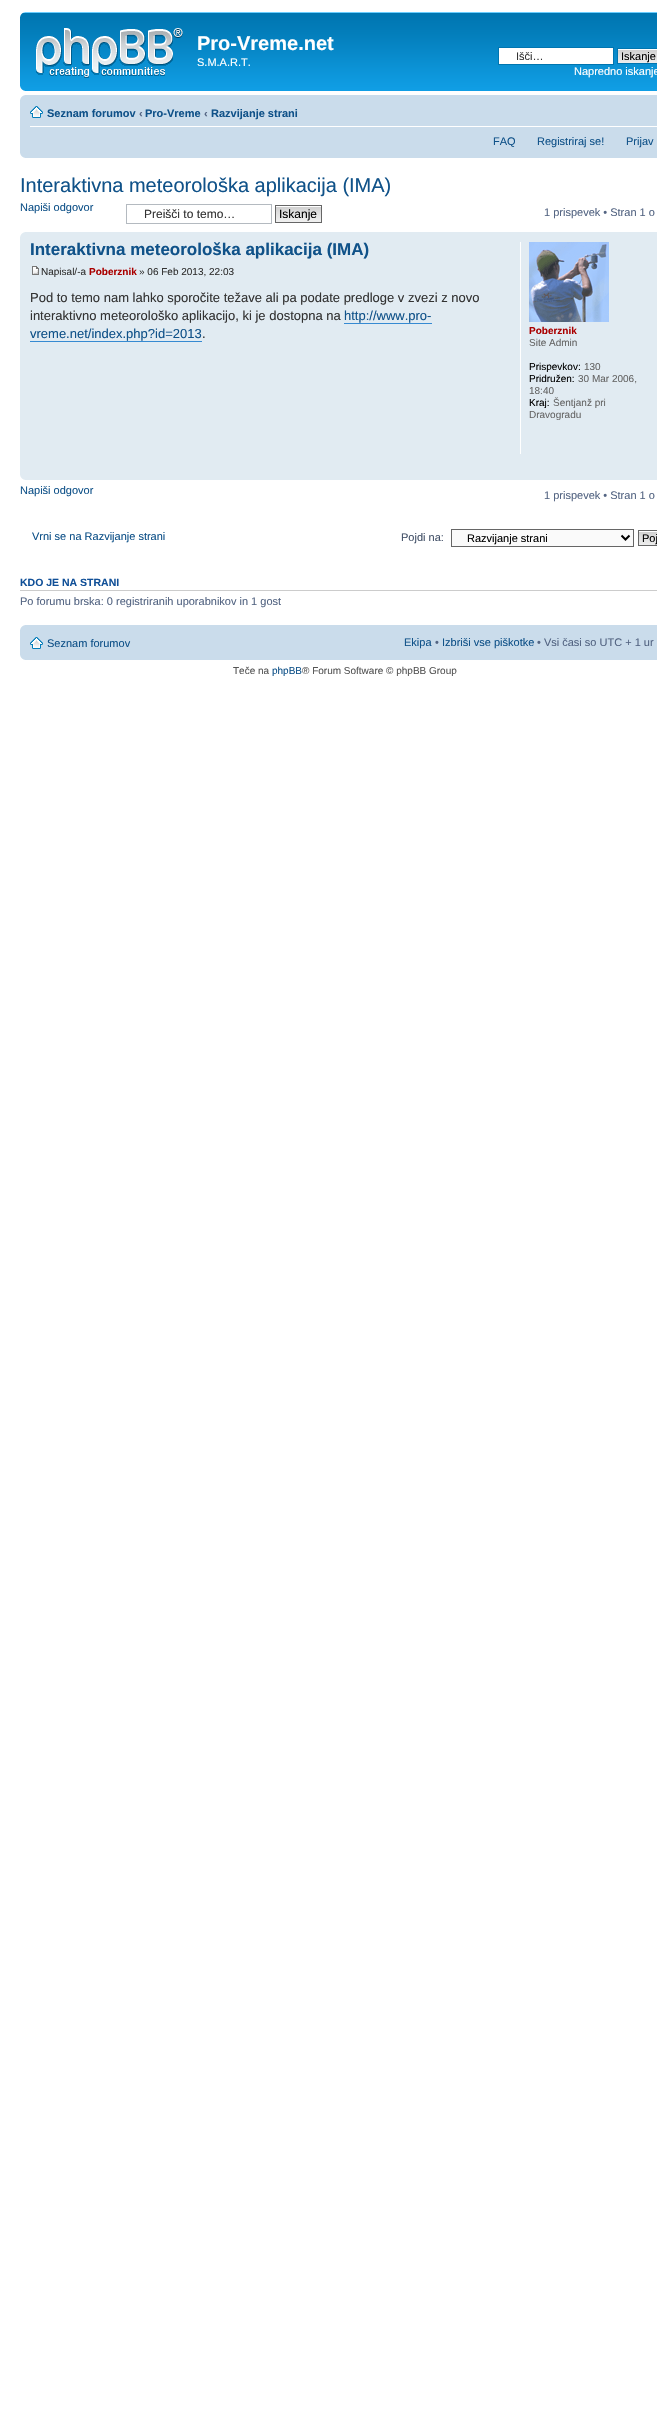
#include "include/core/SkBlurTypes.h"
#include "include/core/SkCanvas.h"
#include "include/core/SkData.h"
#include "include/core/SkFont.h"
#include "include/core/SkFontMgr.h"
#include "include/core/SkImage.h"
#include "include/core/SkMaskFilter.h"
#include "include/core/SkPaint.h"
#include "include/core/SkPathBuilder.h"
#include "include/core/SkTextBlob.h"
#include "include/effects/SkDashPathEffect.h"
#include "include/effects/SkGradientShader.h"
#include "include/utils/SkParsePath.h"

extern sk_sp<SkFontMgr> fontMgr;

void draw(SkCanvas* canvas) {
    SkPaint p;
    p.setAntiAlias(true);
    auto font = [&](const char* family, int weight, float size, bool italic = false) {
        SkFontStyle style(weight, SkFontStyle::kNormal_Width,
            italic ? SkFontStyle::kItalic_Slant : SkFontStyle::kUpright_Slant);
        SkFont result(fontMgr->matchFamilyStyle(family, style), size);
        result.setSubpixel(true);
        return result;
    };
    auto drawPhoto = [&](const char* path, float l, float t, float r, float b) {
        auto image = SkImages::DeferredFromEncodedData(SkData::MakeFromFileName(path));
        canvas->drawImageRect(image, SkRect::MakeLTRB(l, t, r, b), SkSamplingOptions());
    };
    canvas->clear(0xFFFFFFFF);
    drawPhoto("media/1.png", 20, 12, 657, 91);
    drawPhoto("media/2.png", 20, 12, 25, 17);
    drawPhoto("media/3.png", 36, 28, 183, 78);
    auto font1 = font("Liberation Sans", 700, 20);
    p.setColor(0xFFFFFFFF);
    canvas->drawString("Pro-Vreme.net", 197, 50, font1, p);
    auto font2 = font("Liberation Sans", 400, 11);
    canvas->drawString("S.M.A.R.T.", 197, 66, font2, p);
    canvas->drawRect(SkRect::MakeLTRB(498.5f, 47.5f, 613.5f, 64.5f), p);
    p.setStyle(SkPaint::kStroke_Style);
    p.setStrokeWidth(1);
    p.setColor(0xFF0075B0);
    canvas->drawRect(SkRect::MakeLTRB(498.5f, 47.5f, 613.5f, 64.5f), p);
    p.setStyle(SkPaint::kFill_Style);
    p.setColor(0xFF333333);
    canvas->drawString("Išči…", 516, 60, font2, p);
    drawPhoto("media/4.png", 618, 49, 657, 63);
    p.setStyle(SkPaint::kStroke_Style);
    p.setColor(0xFF0075B0);
    canvas->drawRect(SkRect::MakeLTRB(617.5f, 48.5f, 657.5f, 63.5f), p);
    p.setStyle(SkPaint::kFill_Style);
    p.setColor(0xFF000000);
    canvas->drawString("Iskanje", 621, 60, font2, p);
    p.setColor(0xFFFFFFFF);
    canvas->drawString("Napredno iskanje", 574, 75, font2, p);
    drawPhoto("media/5.png", 20, 86, 25, 91);
    p.setColor(0xFFCADCEB);
    canvas->drawRect(SkRect::MakeLTRB(20, 95, 657, 158), p);
    drawPhoto("media/6.png", 20, 95, 25, 100);
    p.setColor(0xFFFFFFFF);
    canvas->drawRect(SkRect::MakeLTRB(30, 126, 657, 127), p);
    drawPhoto("media/7.png", 30, 106, 43, 118);
    auto font3 = font("Liberation Sans", 700, 11);
    p.setColor(0xFF105289);
    canvas->drawString("Seznam forumov", 47, 117, font3, p);
    p.setColor(0xFF536482);
    canvas->drawString("‹", 139, 117, font3, p);
    p.setColor(0xFF105289);
    canvas->drawString("Pro-Vreme", 145, 117, font3, p);
    p.setColor(0xFF536482);
    canvas->drawString("‹", 204, 117, font3, p);
    p.setColor(0xFF105289);
    canvas->drawString("Razvijanje strani", 211, 117, font3, p);
    {
        const struct { const char* s; float x, y; } items[] = {
            {"FAQ", 493, 145},
            {"Registriraj se!", 537, 145},
            {"Prijav", 626, 145},
        };
        for (auto [s, x, y] : items) {
            canvas->drawString(s, x, y, font2, p);
        }
    }
    drawPhoto("media/8.png", 20, 153, 25, 158);
    auto font4 = font("Liberation Sans", 400, 20);
    canvas->drawString("Interaktivna meteorološka aplikacija (IMA)", 20, 192, font4, p);
    canvas->drawString("Napiši odgovor", 20, 211, font2, p);
    p.setStyle(SkPaint::kStroke_Style);
    p.setColor(0xFFB4BAC0);
    canvas->drawRect(SkRect::MakeLTRB(126.5f, 204.5f, 271.5f, 223.5f), p);
    auto font5 = font("Liberation Sans", 400, 12);
    p.setStyle(SkPaint::kFill_Style);
    p.setColor(0xFF333333);
    canvas->drawString("Preišči to temo…", 144, 218, font5, p);
    drawPhoto("media/9.png", 276, 206, 321, 222);
    p.setStyle(SkPaint::kStroke_Style);
    p.setColor(0xFF666666);
    canvas->drawRect(SkRect::MakeLTRB(275.5f, 205.5f, 321.5f, 222.5f), p);
    p.setStyle(SkPaint::kFill_Style);
    p.setColor(0xFF000000);
    canvas->drawString("Iskanje", 279, 218, font5, p);
    p.setColor(0xFF536482);
    canvas->drawString("1 prispevek • Stran 1 o", 544, 216, font2, p);
    p.setColor(0xFFE1EBF2);
    canvas->drawRect(SkRect::MakeLTRB(20, 232, 657, 480), p);
    drawPhoto("media/10.png", 20, 232, 25, 237);
    auto font6 = font("Liberation Sans", 700, 17);
    p.setColor(0xFF105289);
    canvas->drawString("Interaktivna meteorološka aplikacija (IMA)", 30, 255, font6, p);
    drawPhoto("media/11.png", 32, 266, 39, 275);
    auto font7 = font("Liberation Sans", 400, 10);
    p.setColor(0xFF333333);
    canvas->drawString("Napisal/-a", 41, 275, font7, p);
    auto font8 = font("Liberation Sans", 700, 10);
    p.setColor(0xFFAA0000);
    canvas->drawString("Poberznik", 89, 275, font8, p);
    p.setColor(0xFF333333);
    canvas->drawString("» 06 Feb 2013, 22:03", 139, 275, font7, p);
    auto font9 = font("Liberation Sans", 400, 13);
    canvas->drawString("Pod to temo nam lahko sporočite težave ali pa podate predloge v zvezi z novo", 30, 302, font9, p);
    canvas->drawString("interaktivno meteorološko aplikacijo, ki je dostopna na", 30, 320, font9, p);
    p.setColor(0xFF105289);
    canvas->drawString("http://www.pro-", 344, 320, font9, p);
    p.setColor(0xFF368AD2);
    canvas->drawRect(SkRect::MakeLTRB(344, 323, 432, 324), p);
    p.setColor(0xFF105289);
    canvas->drawString("vreme.net/index.php?id=2013", 30, 338, font9, p);
    p.setColor(0xFF368AD2);
    canvas->drawRect(SkRect::MakeLTRB(30, 341, 202, 342), p);
    p.setColor(0xFF333333);
    canvas->drawString(".", 202, 338, font9, p);
    p.setColor(0xFFFFFFFF);
    canvas->drawRect(SkRect::MakeLTRB(520, 242, 521, 454), p);
    drawPhoto("media/12.png", 529, 242, 609, 322);
    p.setColor(0xFFAA0000);
    canvas->drawString("Poberznik", 529, 334, font8, p);
    p.setColor(0xFF666666);
    canvas->drawString("Site Admin", 529, 346, font7, p);
    p.setColor(0xFF000000);
    canvas->drawString("Prispevkov:", 529, 370, font7, p);
    p.setColor(0xFF666666);
    canvas->drawString("130", 584, 370, font7, p);
    p.setColor(0xFF000000);
    canvas->drawString("Pridružen:", 529, 382, font7, p);
    p.setColor(0xFF666666);
    canvas->drawString("30 Mar 2006,", 578, 382, font7, p);
    canvas->drawString("18:40", 529, 394, font7, p);
    p.setColor(0xFF000000);
    canvas->drawString("Kraj:", 529, 406, font7, p);
    p.setColor(0xFF666666);
    canvas->drawString("Šentjanž pri", 553, 406, font7, p);
    canvas->drawString("Dravogradu", 529, 418, font7, p);
    drawPhoto("media/13.png", 20, 475, 25, 480);
    p.setColor(0xFF105289);
    canvas->drawString("Napiši odgovor", 20, 494, font2, p);
    p.setColor(0xFF536482);
    canvas->drawString("1 prispevek • Stran 1 o", 544, 499, font2, p);
    p.setColor(0xFF105289);
    canvas->drawString("Vrni se na Razvijanje strani", 32, 540, font2, p);
    p.setColor(0xFF425067);
    canvas->drawString("Pojdi na:", 401, 541, font2, p);
    p.setColor(0xFFFAFAFA);
    canvas->drawRect(SkRect::MakeLTRB(451.5f, 529.5f, 633.5f, 546.5f), p);
    p.setStyle(SkPaint::kStroke_Style);
    p.setColor(0xFF666666);
    canvas->drawRect(SkRect::MakeLTRB(451.5f, 529.5f, 633.5f, 546.5f), p);
    p.setStrokeWidth(2);
    p.setColor(0xFF000000);
    canvas->drawPath(SkPathBuilder().moveTo(621.5f, 535.5f).lineTo(625.5f, 539.5f).lineTo(629.5f, 535.5f).detach(), p);
    p.setStyle(SkPaint::kFill_Style);
    canvas->drawString("Razvijanje strani", 467, 542, font2, p);
    drawPhoto("media/14.png", 639, 531, 657, 545);
    p.setStyle(SkPaint::kStroke_Style);
    p.setStrokeWidth(1);
    p.setColor(0xFF666666);
    canvas->drawRect(SkRect::MakeLTRB(638.5f, 530.5f, 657.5f, 545.5f), p);
    p.setStyle(SkPaint::kFill_Style);
    p.setColor(0xFF000000);
    canvas->drawString("Poj", 642, 542, font2, p);
    p.setColor(0xFFCCCCCC);
    canvas->drawRect(SkRect::MakeLTRB(20, 590, 657, 591), p);
    auto font10 = font("Liberation Sans", 700, 10.5f);
    p.setColor(0xFF115098);
    canvas->drawString("KDO JE NA STRANI", 20, 586, font10, p);
    p.setColor(0xFF536482);
    canvas->drawString("Po forumu brska: 0 registriranih uporabnikov in 1 gost", 20, 605, font2, p);
    p.setColor(0xFFCADCEB);
    canvas->drawRect(SkRect::MakeLTRB(20, 625, 657, 660), p);
    drawPhoto("media/6.png", 20, 625, 25, 630);
    drawPhoto("media/7.png", 30, 637, 43, 649);
    p.setColor(0xFF105289);
    canvas->drawString("Seznam forumov", 47, 647, font2, p);
    canvas->drawString("Ekipa", 404, 646, font2, p);
    p.setColor(0xFF536482);
    canvas->drawString("•", 435, 646, font2, p);
    p.setColor(0xFF105289);
    canvas->drawString("Izbriši vse piškotke", 442, 646, font2, p);
    p.setColor(0xFF536482);
    canvas->drawString("• Vsi časi so UTC + 1 ur", 537, 646, font2, p);
    drawPhoto("media/8.png", 20, 655, 25, 660);
    p.setColor(0xFF555555);
    canvas->drawString("Teče na", 233, 674, font7, p);
    p.setColor(0xFF105289);
    canvas->drawString("phpBB", 272, 674, font7, p);
    p.setColor(0xFF555555);
    canvas->drawString("® Forum Software © phpBB Group", 302, 674, font7, p);
}
